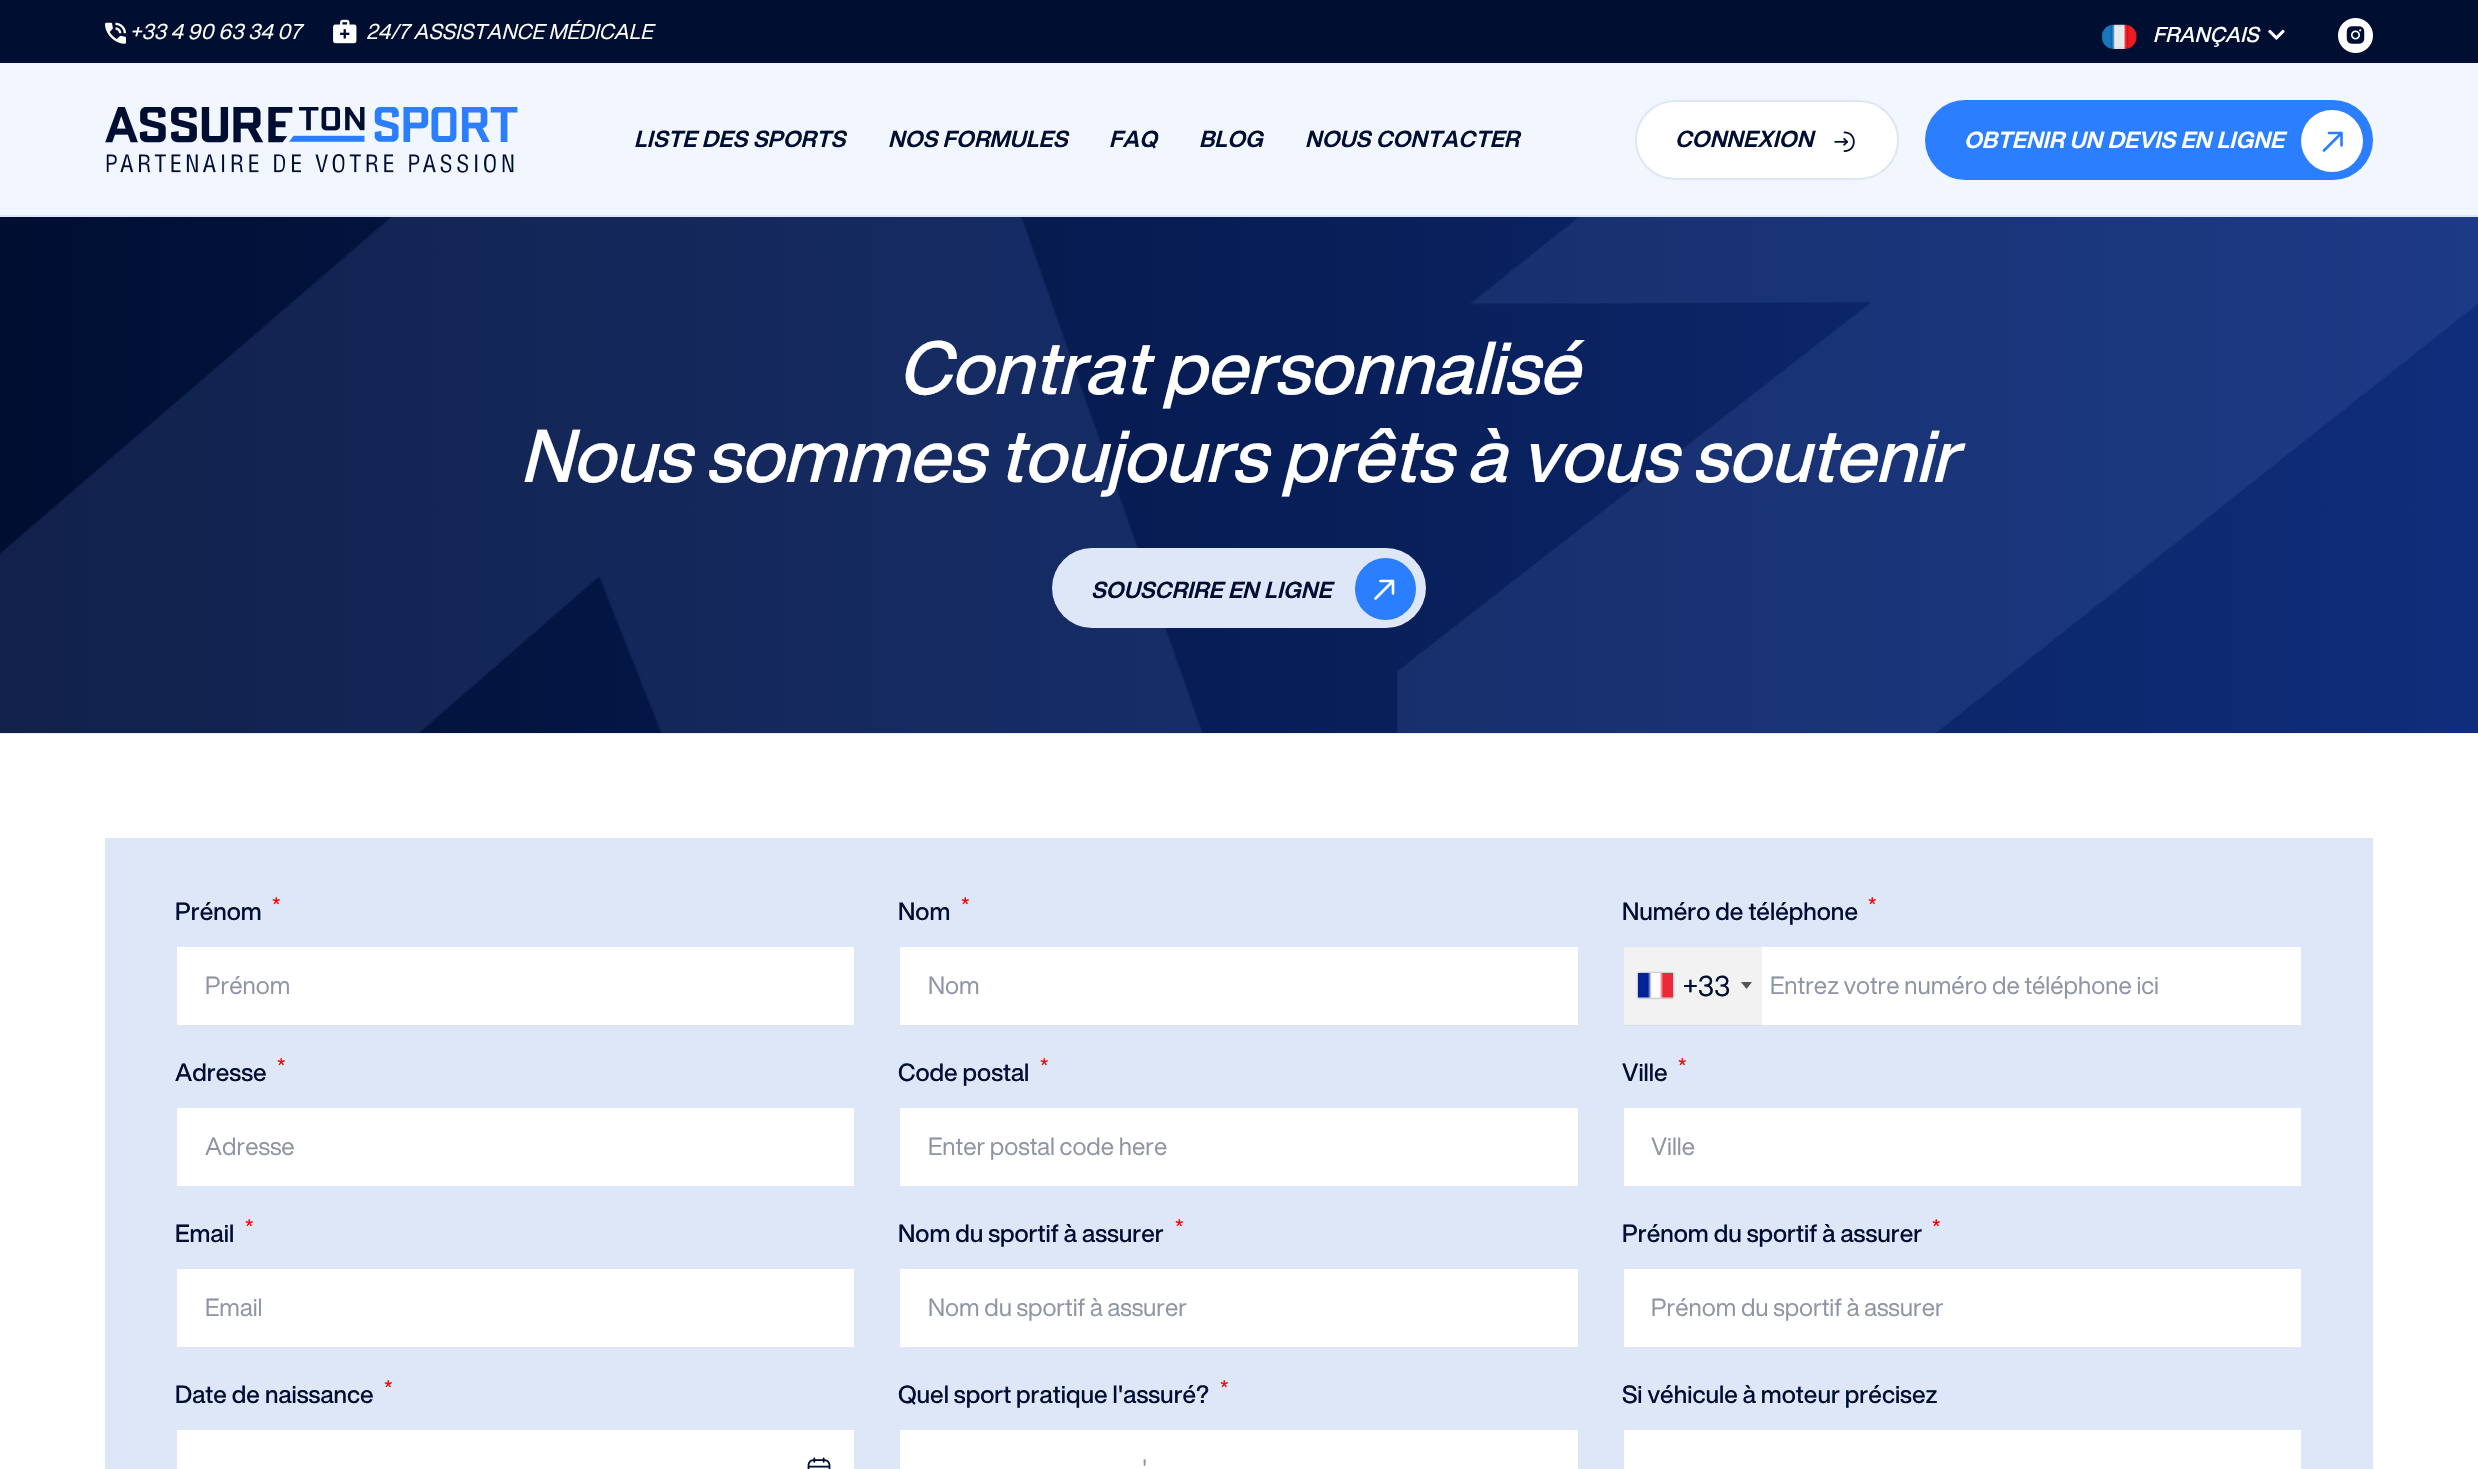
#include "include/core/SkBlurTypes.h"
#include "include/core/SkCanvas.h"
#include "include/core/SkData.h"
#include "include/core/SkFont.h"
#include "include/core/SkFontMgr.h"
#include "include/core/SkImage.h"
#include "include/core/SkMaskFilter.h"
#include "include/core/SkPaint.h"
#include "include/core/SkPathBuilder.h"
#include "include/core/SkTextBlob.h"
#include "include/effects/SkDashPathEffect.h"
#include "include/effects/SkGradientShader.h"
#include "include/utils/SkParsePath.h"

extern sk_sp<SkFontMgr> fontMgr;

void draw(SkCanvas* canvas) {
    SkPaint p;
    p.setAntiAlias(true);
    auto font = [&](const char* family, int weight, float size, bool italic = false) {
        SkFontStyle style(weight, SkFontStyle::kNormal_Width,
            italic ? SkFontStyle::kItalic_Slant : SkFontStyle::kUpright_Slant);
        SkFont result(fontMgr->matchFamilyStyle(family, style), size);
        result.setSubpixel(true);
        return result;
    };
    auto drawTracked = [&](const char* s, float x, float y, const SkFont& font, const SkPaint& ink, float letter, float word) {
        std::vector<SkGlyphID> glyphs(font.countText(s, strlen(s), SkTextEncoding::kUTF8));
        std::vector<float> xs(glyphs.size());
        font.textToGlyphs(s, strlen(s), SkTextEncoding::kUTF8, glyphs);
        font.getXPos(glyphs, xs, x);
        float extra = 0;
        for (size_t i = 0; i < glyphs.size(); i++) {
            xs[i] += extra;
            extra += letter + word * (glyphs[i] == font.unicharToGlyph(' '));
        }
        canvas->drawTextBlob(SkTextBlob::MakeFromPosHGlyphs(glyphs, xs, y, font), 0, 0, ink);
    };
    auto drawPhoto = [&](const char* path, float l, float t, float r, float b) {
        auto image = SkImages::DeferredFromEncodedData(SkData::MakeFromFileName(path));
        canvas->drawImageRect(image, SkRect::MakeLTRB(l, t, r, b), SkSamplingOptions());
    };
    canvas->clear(0xFFFFFFFF);
    {
        const struct { float l, t, r, b; SkColor color; } items[] = {
            {0, 63, 2478, 215, 0xFFF2F6FE},
            {0, 215, 2478, 217, 0xFFDDE7F7},
            {0, 0, 2478, 63, 0xFF000E32},
        };
        for (auto [l, t, r, b, color] : items) {
            p.setColor(color);
            canvas->drawRect(SkRect::MakeLTRB(l, t, r, b), p);
        }
    }
    drawPhoto("media/1.png", 105, 22, 126, 44);
    auto font1 = font("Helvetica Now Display", 400, 21, true);
    p.setColor(0xFFFFFFFF);
    drawTracked("+33 4 90 63 34 07", 130, 39, font1, p, 0.35f, 0);
    drawPhoto("media/2.png", 333, 19, 357, 44);
    drawTracked("24/7 ASSISTANCE MÉDICALE", 366, 39, font1, p, 0.35f, 0);
    drawPhoto("media/3.png", 2101, 24, 2137, 49);
    auto font2 = font("Helvetica Now Display", 500, 21, true);
    drawTracked("FRANÇAIS", 2153, 42, font2, p, 0.35f, 0);
    drawPhoto("media/4.png", 2268, 29, 2285, 40);
    drawPhoto("media/5.png", 2338, 18, 2373, 53);
    drawPhoto("media/6.png", 105, 107, 518, 173);
    auto font3 = font("Helvetica Now Display", 700, 22.75f, true);
    p.setColor(0xFF000E32);
    {
        const struct { const char* s; float x, y; } items[] = {
            {"LISTE DES SPORTS", 634, 147},
            {"NOS FORMULES", 888, 147},
            {"FAQ", 1109, 147},
            {"BLOG", 1199, 147},
            {"NOUS CONTACTER", 1305, 147},
        };
        for (auto [s, x, y] : items) {
            drawTracked(s, x, y, font3, p, 0.35f, 0);
        }
    }
    p.setColor(0xFFFFFFFF);
    canvas->drawRoundRect(SkRect::MakeLTRB(1636, 101, 1898, 179), 39, 39, p);
    p.setStyle(SkPaint::kStroke_Style);
    p.setStrokeWidth(2);
    p.setColor(0xFFDDE7F7);
    canvas->drawRoundRect(SkRect::MakeLTRB(1636, 101, 1898, 179), 39, 39, p);
    p.setStyle(SkPaint::kFill_Style);
    p.setColor(0xFF000E32);
    drawTracked("CONNEXION", 1675, 147, font3, p, 0.35f, 0);
    drawPhoto("media/7.png", 1834, 131, 1855, 152);
    p.setColor(0xFF2B7FFE);
    canvas->drawRoundRect(SkRect::MakeLTRB(1925, 100, 2373, 180), 40, 40, p);
    p.setColor(0xFFFFFFFF);
    drawTracked("OBTENIR UN DEVIS EN LIGNE", 1964, 148, font3, p, 0.35f, 0);
    canvas->drawCircle(2332, 141, 31, p);
    p.setStyle(SkPaint::kStroke_Style);
    p.setStrokeWidth(2.6f);
    p.setStrokeCap(SkPaint::kRound_Cap);
    p.setStrokeJoin(SkPaint::kRound_Join);
    p.setColor(0xFF2B7FFE);
    canvas->drawPath(SkPathBuilder().moveTo(2329, 133).lineTo(2341.5f, 133).lineTo(2341.5f, 145.5f).moveTo(2324, 150.5f).lineTo(2341.5f, 133).detach(), p);
    drawPhoto("media/8.png", 0, 217, 2478, 734);
    auto font4 = font("Helvetica Now Display", 500, 73.5f, true);
    p.setStyle(SkPaint::kFill_Style);
    p.setColor(0xFFFFFFFF);
    canvas->drawString("Contrat personnalisé", 898, 394, font4, p);
    canvas->drawString("Nous sommes toujours prêts à vous soutenir", 520, 482, font4, p);
    p.setColor(0xFFDDE7F7);
    canvas->drawRoundRect(SkRect::MakeLTRB(1052, 548, 1426, 628), 40, 40, p);
    p.setColor(0xFF000E32);
    drawTracked("SOUSCRIRE EN LIGNE", 1091, 598, font3, p, 0.35f, 0);
    p.setColor(0xFF2B7FFE);
    canvas->drawRoundRect(SkRect::MakeLTRB(1355, 558, 1416, 620), 30.5f, 30.5f, p);
    p.setStyle(SkPaint::kStroke_Style);
    p.setColor(0xFFFFFFFF);
    canvas->drawPath(SkPathBuilder().moveTo(1380.5f, 581).lineTo(1393, 581).lineTo(1393, 593.5f).moveTo(1375.5f, 598.5f).lineTo(1393, 581).detach(), p);
    p.setStyle(SkPaint::kFill_Style);
    p.setColor(0xFFDDE7F7);
    canvas->drawRect(SkRect::MakeLTRB(105, 838, 2373, 1469), p);
    auto font5 = font("Helvetica Now Display", 500, 18);
    p.setColor(0xFFFF0000);
    canvas->drawString("*", 272, 910, font5, p);
    auto font6 = font("Helvetica Now Display", 500, 24.5f);
    p.setColor(0xFF000E32);
    canvas->drawString("Prénom", 175, 920, font6, p);
    p.setColor(0xFFFFFFFF);
    canvas->drawRect(SkRect::MakeLTRB(177, 947, 854, 1025), p);
    auto font7 = font("Helvetica Now Display", 400, 24.5f);
    p.setColor(0xFF8F95A5);
    canvas->drawString("Prénom", 205, 994, font7, p);
    p.setColor(0xFFFF0000);
    canvas->drawString("*", 961, 910, font5, p);
    p.setColor(0xFF000E32);
    canvas->drawString("Nom", 898, 920, font6, p);
    p.setColor(0xFFFFFFFF);
    canvas->drawRect(SkRect::MakeLTRB(900, 947, 1578, 1025), p);
    p.setColor(0xFF8F95A5);
    canvas->drawString("Nom", 928, 994, font7, p);
    p.setColor(0xFFFF0000);
    canvas->drawString("*", 1868, 910, font5, p);
    p.setColor(0xFF000E32);
    canvas->drawString("Numéro de téléphone", 1622, 920, font6, p);
    p.setColor(0xFFFFFFFF);
    canvas->drawRect(SkRect::MakeLTRB(1624, 947, 2301, 1025), p);
    p.setColor(0x0D000000);
    canvas->drawRect(SkRect::MakeLTRB(1624, 947, 1762, 1026), p);
    p.setColor(0xFF888888);
    p.setMaskFilter(SkMaskFilter::MakeBlur(kNormal_SkBlurStyle, 1));
    canvas->drawRect(SkRect::MakeLTRB(1638, 973, 1673, 998), p);
    p.setMaskFilter(nullptr);
    p.setColor(0xFFDBDBDB);
    canvas->drawRect(SkRect::MakeLTRB(1638, 997, 1673, 998), p);
    drawPhoto("media/9.png", 1638, 973, 1673, 998);
    auto font8 = font("Helvetica Now Display", 400, 28);
    p.setColor(0xFF000E32);
    canvas->drawString("+33", 1683, 996, font8, p);
    p.setColor(0xFF555555);
    canvas->drawPath(SkPathBuilder().moveTo(1741, 982).lineTo(1752, 982).lineTo(1746.5f, 989).close().detach(), p);
    p.setColor(0xFF8F95A5);
    canvas->drawString("Entrez votre numéro de téléphone ici", 1770, 994, font7, p);
    p.setColor(0xFFFF0000);
    canvas->drawString("*", 277, 1071, font5, p);
    p.setColor(0xFF000E32);
    canvas->drawString("Adresse", 175, 1081, font6, p);
    p.setColor(0xFFFFFFFF);
    canvas->drawRect(SkRect::MakeLTRB(177, 1108, 854, 1186), p);
    p.setColor(0xFF8F95A5);
    canvas->drawString("Adresse", 205, 1155, font7, p);
    p.setColor(0xFFFF0000);
    canvas->drawString("*", 1040, 1071, font5, p);
    p.setColor(0xFF000E32);
    canvas->drawString("Code postal", 898, 1081, font6, p);
    p.setColor(0xFFFFFFFF);
    canvas->drawRect(SkRect::MakeLTRB(900, 1108, 1578, 1186), p);
    p.setColor(0xFF8F95A5);
    canvas->drawString("Enter postal code here", 928, 1155, font7, p);
    p.setColor(0xFFFF0000);
    canvas->drawString("*", 1678, 1071, font5, p);
    p.setColor(0xFF000E32);
    canvas->drawString("Ville", 1622, 1081, font6, p);
    p.setColor(0xFFFFFFFF);
    canvas->drawRect(SkRect::MakeLTRB(1624, 1108, 2301, 1186), p);
    p.setColor(0xFF8F95A5);
    canvas->drawString("Ville", 1651, 1155, font7, p);
    p.setColor(0xFFFF0000);
    canvas->drawString("*", 245, 1232, font5, p);
    p.setColor(0xFF000E32);
    canvas->drawString("Email", 175, 1242, font6, p);
    p.setColor(0xFFFFFFFF);
    canvas->drawRect(SkRect::MakeLTRB(177, 1269, 854, 1347), p);
    p.setColor(0xFF8F95A5);
    canvas->drawString("Email", 205, 1316, font7, p);
    p.setColor(0xFFFF0000);
    canvas->drawString("*", 1175, 1232, font5, p);
    p.setColor(0xFF000E32);
    canvas->drawString("Nom du sportif à assurer", 898, 1242, font6, p);
    p.setColor(0xFFFFFFFF);
    canvas->drawRect(SkRect::MakeLTRB(900, 1269, 1578, 1347), p);
    p.setColor(0xFF8F95A5);
    canvas->drawString("Nom du sportif à assurer", 928, 1316, font7, p);
    p.setColor(0xFFFF0000);
    canvas->drawString("*", 1932, 1232, font5, p);
    p.setColor(0xFF000E32);
    canvas->drawString("Prénom du sportif à assurer", 1622, 1242, font6, p);
    p.setColor(0xFFFFFFFF);
    canvas->drawRect(SkRect::MakeLTRB(1624, 1269, 2301, 1347), p);
    p.setColor(0xFF8F95A5);
    canvas->drawString("Prénom du sportif à assurer", 1651, 1316, font7, p);
    p.setColor(0xFFFF0000);
    canvas->drawString("*", 384, 1393, font5, p);
    p.setColor(0xFF000E32);
    canvas->drawString("Date de naissance", 175, 1403, font6, p);
    p.setColor(0xFFFFFFFF);
    canvas->drawRect(SkRect::MakeLTRB(177, 1430, 854, 1469), p);
    drawPhoto("media/10.png", 807, 1457, 831, 1469);
    p.setColor(0xFFFF0000);
    canvas->drawString("*", 1220, 1393, font5, p);
    p.setColor(0xFF000E32);
    canvas->drawString("Quel sport pratique l'assuré?", 898, 1403, font6, p);
    p.setColor(0xFFFFFFFF);
    canvas->drawRect(SkRect::MakeLTRB(900, 1430, 1578, 1469), p);
    p.setColor(0xFF8F95A5);
    canvas->drawString("'", 1142, 1477, font7, p);
    p.setColor(0xFF000E32);
    canvas->drawString("Si véhicule à moteur précisez", 1622, 1403, font6, p);
    p.setColor(0xFFFFFFFF);
    canvas->drawRect(SkRect::MakeLTRB(1624, 1430, 2301, 1469), p);
}
